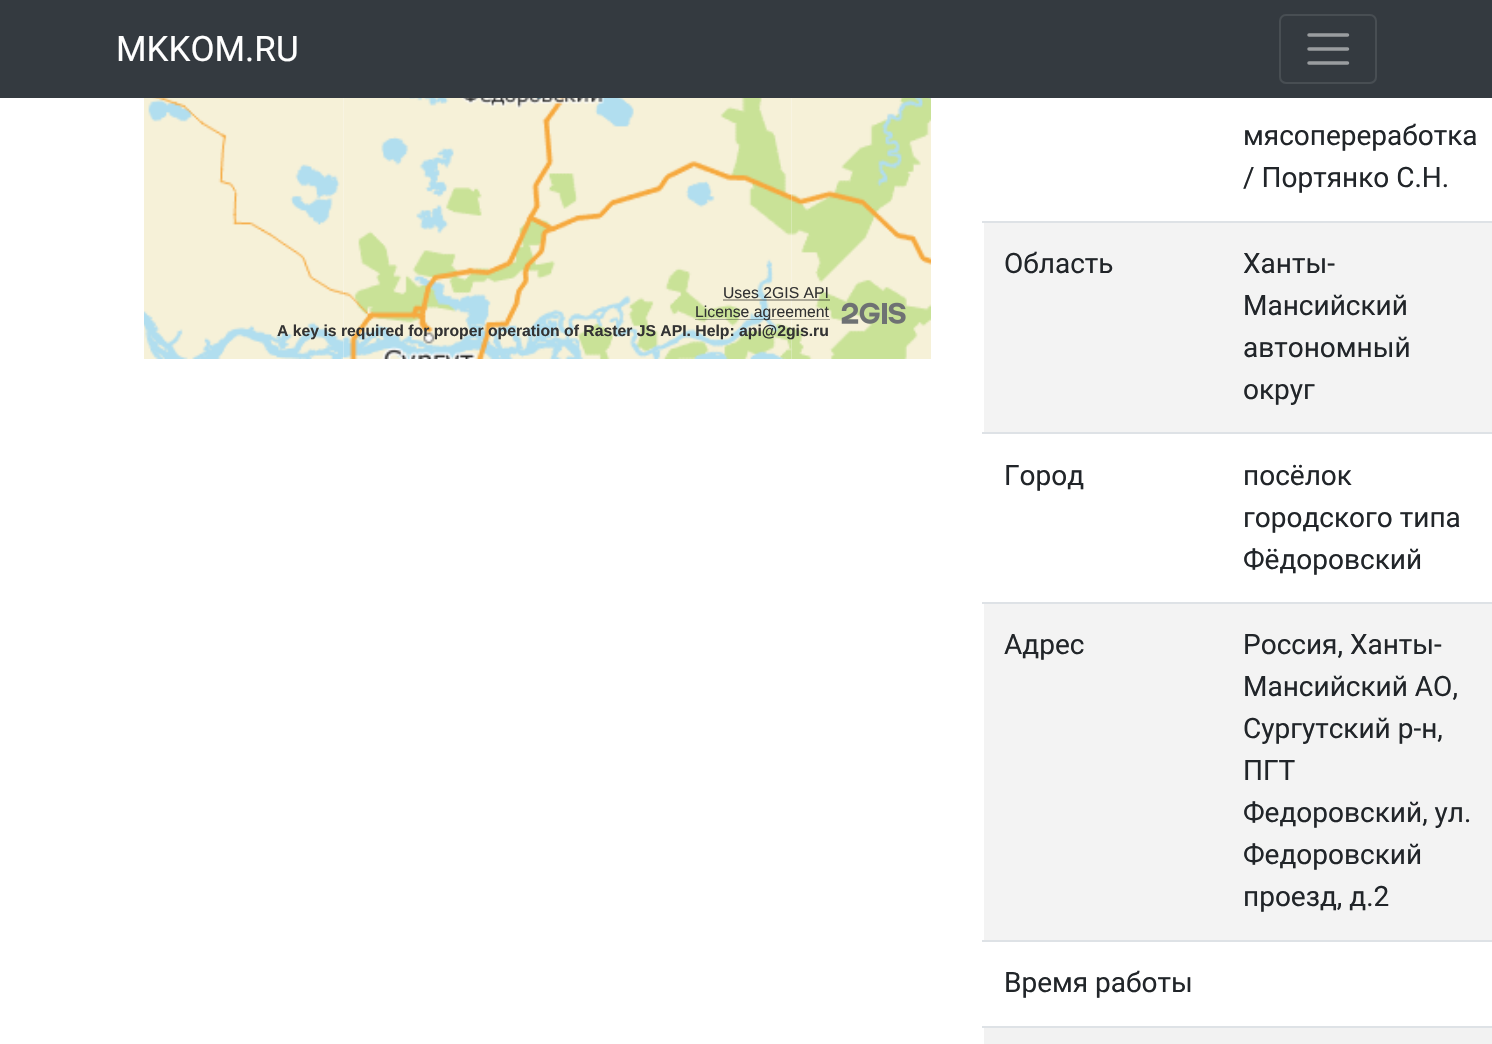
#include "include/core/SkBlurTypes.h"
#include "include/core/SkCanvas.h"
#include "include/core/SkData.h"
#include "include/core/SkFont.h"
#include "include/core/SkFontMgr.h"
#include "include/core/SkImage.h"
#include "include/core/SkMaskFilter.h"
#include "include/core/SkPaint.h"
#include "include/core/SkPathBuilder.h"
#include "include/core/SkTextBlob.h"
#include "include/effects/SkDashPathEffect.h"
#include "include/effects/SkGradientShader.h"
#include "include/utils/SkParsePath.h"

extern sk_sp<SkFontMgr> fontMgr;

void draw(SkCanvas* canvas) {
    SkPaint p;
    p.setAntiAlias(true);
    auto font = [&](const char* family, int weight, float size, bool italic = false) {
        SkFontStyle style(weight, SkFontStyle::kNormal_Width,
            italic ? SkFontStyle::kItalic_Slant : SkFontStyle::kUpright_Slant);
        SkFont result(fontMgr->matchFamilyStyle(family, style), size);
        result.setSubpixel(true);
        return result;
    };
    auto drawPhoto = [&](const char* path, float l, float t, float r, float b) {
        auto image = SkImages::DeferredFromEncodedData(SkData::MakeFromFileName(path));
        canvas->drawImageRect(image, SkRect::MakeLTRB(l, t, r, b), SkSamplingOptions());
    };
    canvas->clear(0xFFFFFFFF);
    p.setColor(0xFF343A40);
    canvas->drawRect(SkRect::MakeLTRB(0, 0, 1492, 98), p);
    auto font1 = font("Roboto", 400, 35);
    p.setColor(0xFFFFFFFF);
    canvas->drawString("MKKOM.RU", 116, 61, font1, p);
    p.setStyle(SkPaint::kStroke_Style);
    p.setStrokeWidth(2);
    p.setColor(0xFF484E53);
    canvas->drawRoundRect(SkRect::MakeLTRB(1280, 15, 1376, 83), 6, 6, p);
    p.setStrokeWidth(3.5f);
    p.setStrokeCap(SkPaint::kRound_Cap);
    p.setColor(0xFF9A9DA0);
    canvas->drawPath(SkPathBuilder().moveTo(1309, 35).lineTo(1347.5f, 35).moveTo(1309, 49).lineTo(1347.5f, 49).moveTo(1309, 63).lineTo(1347.5f, 63).detach(), p);
    drawPhoto("media/1.png", 144, 98, 343, 359);
    drawPhoto("media/2.png", 343, 98, 791, 359);
    drawPhoto("media/3.png", 790, 98, 931, 359);
    drawPhoto("media/4.png", 533, 98, 545, 101);
    auto font2 = font("Liberation Sans", 400, 15.75f);
    p.setStyle(SkPaint::kFill_Style);
    p.setColor(0xFF333333);
    canvas->drawString("Uses 2GIS API", 723, 298, font2, p);
    p.setColor(0x4D080808);
    canvas->drawRect(SkRect::MakeLTRB(723, 299, 830, 301), p);
    canvas->drawRect(SkRect::MakeLTRB(695, 319, 830, 320), p);
    p.setColor(0xFF333333);
    canvas->drawString("License agreement", 695, 317, font2, p);
    auto font3 = font("Liberation Sans", 700, 15.75f);
    canvas->drawString("A key is required for proper operation of Raster JS API. Help: api@2gis.ru", 277, 336, font3, p);
    drawPhoto("media/5.png", 841, 302, 906, 324);
    auto font4 = font("Roboto", 400, 28);
    p.setColor(0xFF212529);
    canvas->drawString("мясопереработка", 1243, 145, font4, p);
    canvas->drawString("/ Портянко С.Н.", 1243, 187, font4, p);
    p.setColor(0xFFF3F3F3);
    canvas->drawRect(SkRect::MakeLTRB(984, 223, 1492, 432), p);
    p.setColor(0xFF212529);
    canvas->drawString("Область", 1004, 273, font4, p);
    p.setColor(0xFFDEE2E6);
    canvas->drawRect(SkRect::MakeLTRB(982, 221, 1492, 223), p);
    p.setColor(0xFF212529);
    {
        const struct { const char* s; float x, y; } items[] = {
            {"Ханты-", 1243, 273},
            {"Мансийский", 1243, 315},
            {"автономный", 1243, 357},
            {"округ", 1243, 399},
            {"Город", 1004, 485},
        };
        for (auto [s, x, y] : items) {
            canvas->drawString(s, x, y, font4, p);
        }
    }
    p.setColor(0xFFDEE2E6);
    canvas->drawRect(SkRect::MakeLTRB(982, 432, 1492, 434), p);
    p.setColor(0xFF212529);
    {
        const struct { const char* s; float x, y; } items[] = {
            {"посёлок", 1243, 485},
            {"городского типа", 1243, 527},
            {"Фёдоровский", 1243, 569},
        };
        for (auto [s, x, y] : items) {
            canvas->drawString(s, x, y, font4, p);
        }
    }
    p.setColor(0xFFF3F3F3);
    canvas->drawRect(SkRect::MakeLTRB(984, 604, 1492, 940), p);
    p.setColor(0xFF212529);
    canvas->drawString("Адрес", 1004, 654, font4, p);
    p.setColor(0xFFDEE2E6);
    canvas->drawRect(SkRect::MakeLTRB(982, 602, 1492, 604), p);
    p.setColor(0xFF212529);
    {
        const struct { const char* s; float x, y; } items[] = {
            {"Россия, Ханты-", 1243, 654},
            {"Мансийский АО,", 1243, 696},
            {"Сургутский р-н,", 1243, 738},
            {"ПГТ", 1243, 780},
            {"Федоровский, ул.", 1243, 822},
            {"Федоровский", 1243, 864},
            {"проезд, д.2", 1243, 906},
        };
        for (auto [s, x, y] : items) {
            canvas->drawString(s, x, y, font4, p);
        }
    }
    p.setColor(0xFFDEE2E6);
    canvas->drawRect(SkRect::MakeLTRB(982, 940, 1492, 942), p);
    p.setColor(0xFF212529);
    canvas->drawString("Время работы", 1004, 992, font4, p);
    p.setColor(0xFFF2F2F2);
    canvas->drawRect(SkRect::MakeLTRB(984, 1028, 1492, 1044), p);
    p.setColor(0xFFDEE2E6);
    canvas->drawRect(SkRect::MakeLTRB(982, 1026, 1492, 1028), p);
}
